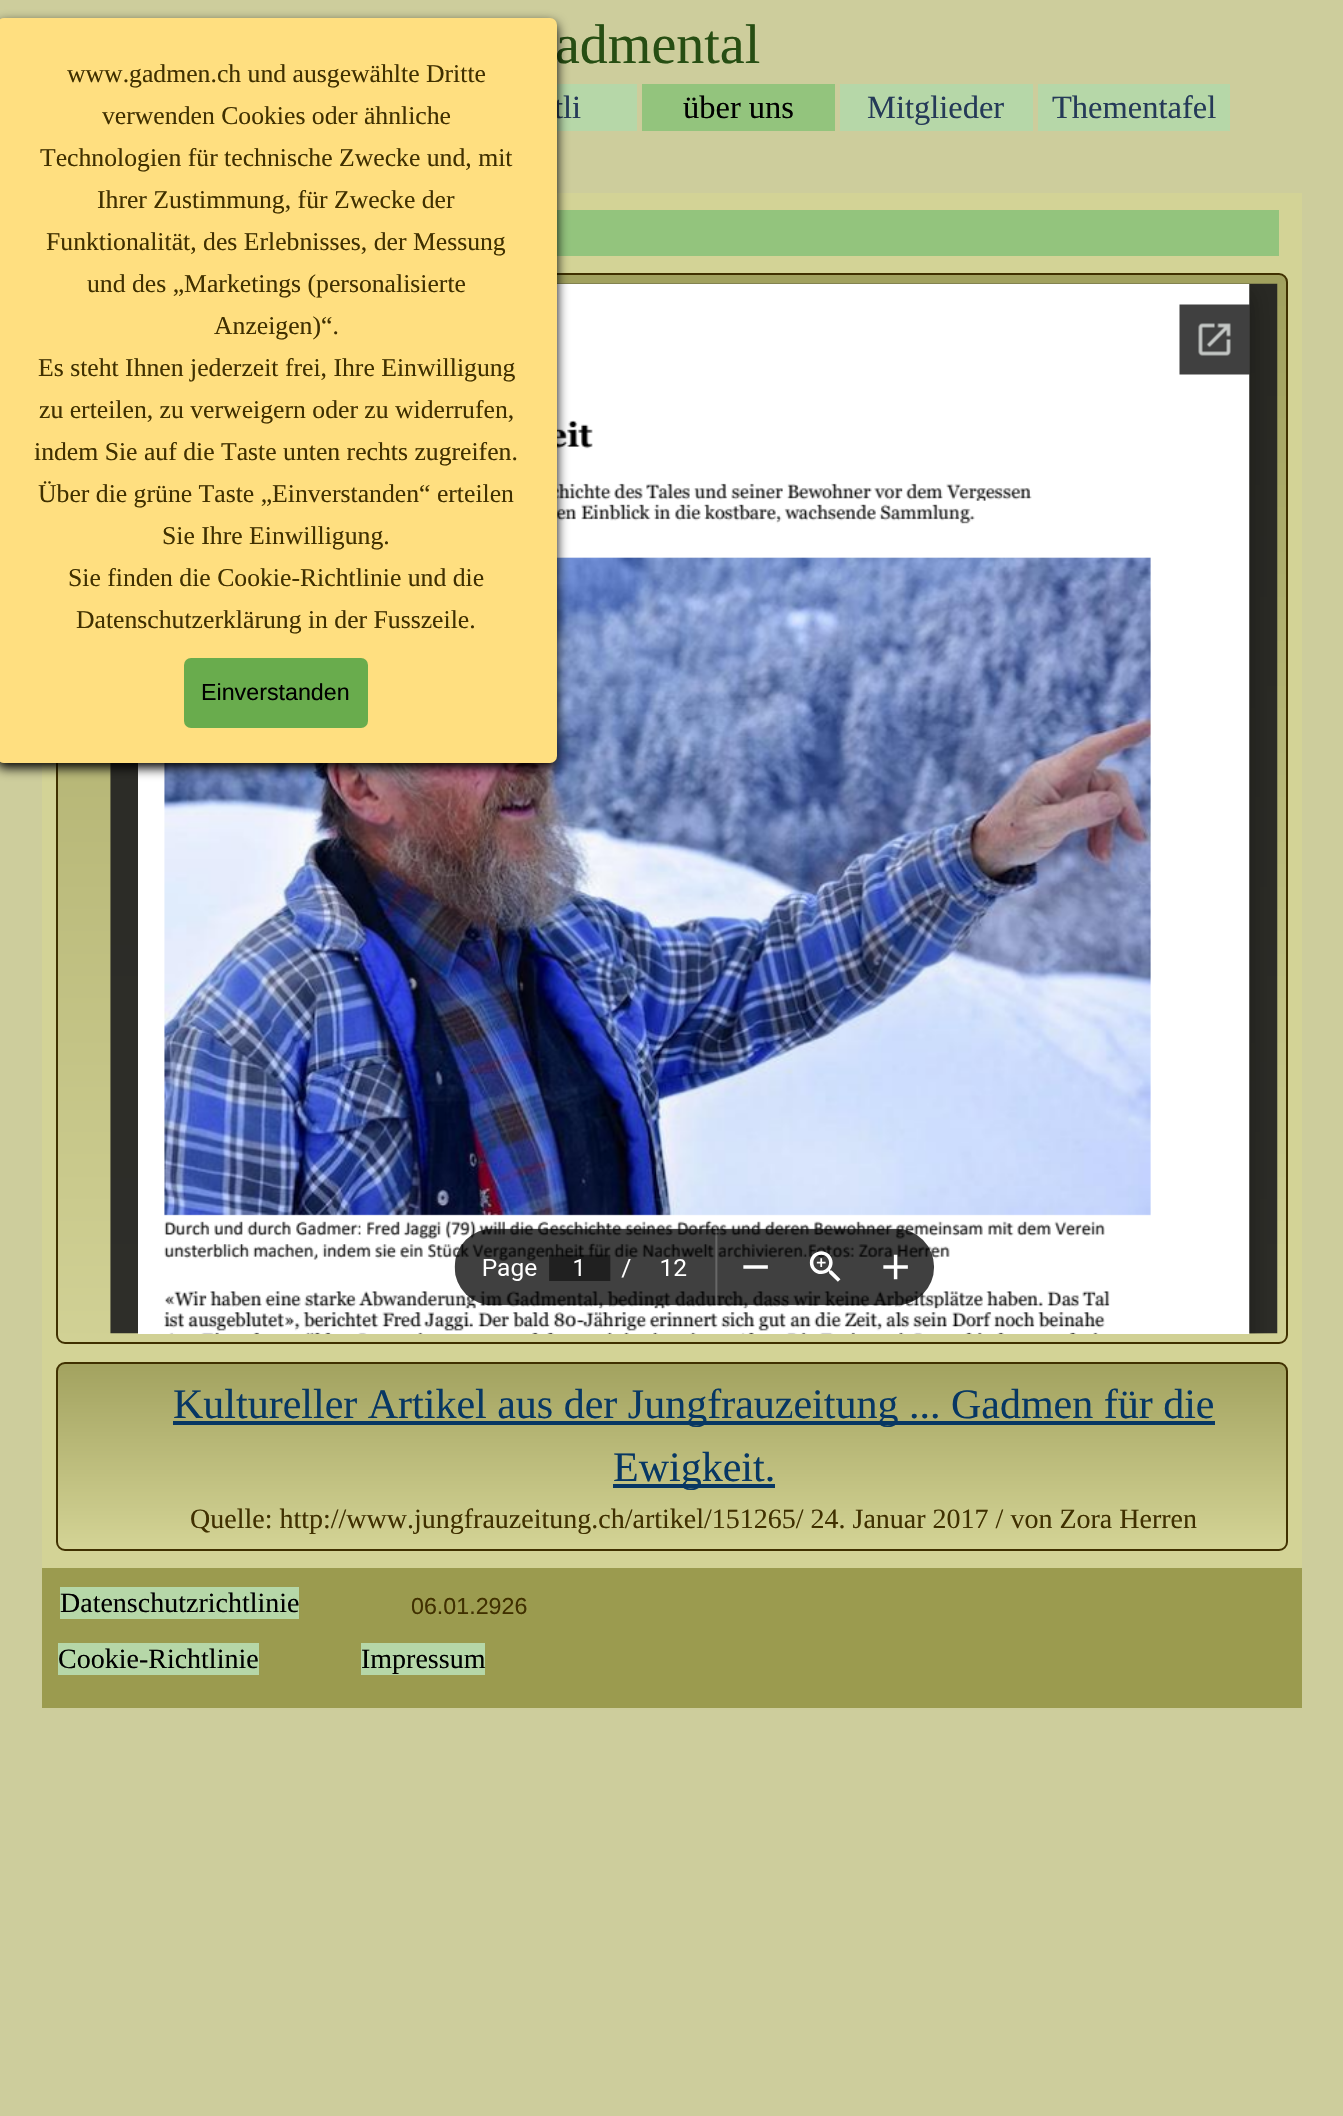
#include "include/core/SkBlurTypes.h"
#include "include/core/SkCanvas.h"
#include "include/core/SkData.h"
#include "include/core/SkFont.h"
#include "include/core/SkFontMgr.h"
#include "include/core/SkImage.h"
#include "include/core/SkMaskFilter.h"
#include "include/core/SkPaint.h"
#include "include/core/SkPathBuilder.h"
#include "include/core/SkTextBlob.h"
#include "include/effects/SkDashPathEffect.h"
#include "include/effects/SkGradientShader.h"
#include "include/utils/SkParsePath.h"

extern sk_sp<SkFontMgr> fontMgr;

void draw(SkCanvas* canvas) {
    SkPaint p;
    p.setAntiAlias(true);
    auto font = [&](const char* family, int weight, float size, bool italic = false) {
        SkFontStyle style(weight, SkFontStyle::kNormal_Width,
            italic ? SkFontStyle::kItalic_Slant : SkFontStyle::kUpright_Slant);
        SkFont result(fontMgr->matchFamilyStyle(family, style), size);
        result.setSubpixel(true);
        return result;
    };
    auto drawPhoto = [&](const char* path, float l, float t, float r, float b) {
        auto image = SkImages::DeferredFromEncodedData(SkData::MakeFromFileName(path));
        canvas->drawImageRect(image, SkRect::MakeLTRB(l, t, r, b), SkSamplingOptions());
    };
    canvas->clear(0xFFCDCD9C);
    auto font1 = font("Liberation Serif", 400, 56);
    p.setColor(0xFF274E13);
    canvas->drawString("admental", 555, 63, font1, p);
    p.setColor(0xFFB6D7A8);
    canvas->drawRect(SkRect::MakeLTRB(557, 84, 637, 131), p);
    auto font2 = font("Liberation Serif", 400, 32.5f);
    p.setColor(0xFF253A58);
    canvas->drawString("tli", 554, 118, font2, p);
    p.setColor(0xFF93C47D);
    canvas->drawRect(SkRect::MakeLTRB(642, 84, 835, 131), p);
    p.setColor(0xFF000000);
    canvas->drawString("über uns", 683, 118, font2, p);
    p.setColor(0xFFB6D7A8);
    canvas->drawRect(SkRect::MakeLTRB(840, 84, 1033, 131), p);
    p.setColor(0xFF253A58);
    canvas->drawString("Mitglieder", 867, 118, font2, p);
    p.setColor(0xFFB6D7A8);
    canvas->drawRect(SkRect::MakeLTRB(1038, 84, 1230, 131), p);
    p.setColor(0xFF253A58);
    canvas->drawString("Thementafel", 1052, 118, font2, p);
    p.setColor(0xFFD3D396);
    canvas->drawRect(SkRect::MakeLTRB(42, 193, 1302, 1568), p);
    p.setColor(0xFF93C47D);
    canvas->drawRect(SkRect::MakeLTRB(557, 210, 1279, 256), p);
    {
        const SkColor colors[] = {0xFFA1A15E, 0xFFD1D195};
        const float stops[] = {0, 1};
        const SkPoint ends[] = {{672, 273}, {672, 1344}};
        p.setShader(SkGradientShader::MakeLinear(ends, colors, stops, 2, SkTileMode::kClamp));
        p.setAlpha(255);
    }
    canvas->drawRoundRect(SkRect::MakeLTRB(57, 274, 1287, 1343), 8, 8, p);
    p.setStyle(SkPaint::kStroke_Style);
    p.setStrokeWidth(2);
    p.setShader(nullptr);
    p.setColor(0xFF403000);
    canvas->drawRoundRect(SkRect::MakeLTRB(57, 274, 1287, 1343), 8, 8, p);
    drawPhoto("media/1.png", 110, 283, 1278, 1334);
    p.setStyle(SkPaint::kFill_Style);
    {
        const SkColor colors[] = {0xFFA2A25F, 0xFFD4D496};
        const float stops[] = {0, 1};
        const SkPoint ends[] = {{672, 1362}, {672, 1551}};
        p.setShader(SkGradientShader::MakeLinear(ends, colors, stops, 2, SkTileMode::kClamp));
        p.setAlpha(255);
    }
    canvas->drawRoundRect(SkRect::MakeLTRB(57, 1363, 1287, 1550), 8, 8, p);
    p.setStyle(SkPaint::kStroke_Style);
    p.setShader(nullptr);
    p.setColor(0xFF403000);
    canvas->drawRoundRect(SkRect::MakeLTRB(57, 1363, 1287, 1550), 8, 8, p);
    p.setStyle(SkPaint::kFill_Style);
    p.setColor(0xFF073763);
    canvas->drawRect(SkRect::MakeLTRB(173, 1421, 1215, 1425), p);
    auto font3 = font("Liberation Serif", 400, 42);
    canvas->drawString("Kultureller Artikel aus der Jungfrauzeitung ... Gadmen für die", 173, 1418, font3, p);
    canvas->drawRect(SkRect::MakeLTRB(613, 1484, 775, 1488), p);
    canvas->drawString("Ewigkeit.", 613, 1481, font3, p);
    auto font4 = font("Liberation Serif", 400, 28);
    p.setColor(0xFF403000);
    canvas->drawString("Quelle: http://www.jungfrauzeitung.ch/artikel/151265/ 24. Januar 2017 / von Zora Herren", 190, 1528, font4, p);
    p.setColor(0xFF9B9B4F);
    canvas->drawRect(SkRect::MakeLTRB(42, 1568, 1302, 1708), p);
    p.setColor(0xFFB6D7A8);
    canvas->drawRect(SkRect::MakeLTRB(60, 1587, 299, 1619), p);
    p.setColor(0xFF000000);
    canvas->drawString("Datenschutzrichtlinie", 60, 1612, font4, p);
    auto font5 = font("Liberation Sans", 400, 23.25f);
    p.setColor(0xFF403000);
    canvas->drawString("06.01.2926", 411, 1614, font5, p);
    p.setColor(0xFFB6D7A8);
    canvas->drawRect(SkRect::MakeLTRB(58, 1643, 259, 1675), p);
    p.setColor(0xFF000000);
    canvas->drawString("Cookie-Richtlinie", 58, 1668, font4, p);
    p.setColor(0xFFB6D7A8);
    canvas->drawRect(SkRect::MakeLTRB(361, 1643, 485, 1675), p);
    p.setColor(0xFF000000);
    canvas->drawString("Impressum", 361, 1668, font4, p);
    p.setMaskFilter(SkMaskFilter::MakeBlur(kNormal_SkBlurStyle, 6));
    canvas->drawRoundRect(SkRect::MakeLTRB(-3, 23, 557, 768), 7, 7, p);
    p.setMaskFilter(nullptr);
    p.setColor(0xFFFFDF80);
    canvas->drawRoundRect(SkRect::MakeLTRB(-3, 18, 557, 763), 7, 7, p);
    auto font6 = font("Liberation Serif", 400, 25.7f);
    p.setColor(0xFF403000);
    {
        const struct { const char* s; float x, y; } items[] = {
            {"www.gadmen.ch und ausgewählte Dritte", 67, 82},
            {"verwenden Cookies oder ähnliche", 102, 124},
            {"Technologien für technische Zwecke und, mit", 40, 166},
            {"Ihrer Zustimmung, für Zwecke der", 97, 208},
            {"Funktionalität, des Erlebnisses, der Messung", 46, 250},
            {"und des „Marketings (personalisierte", 87, 292},
            {"Anzeigen)“.", 214, 334},
            {"Es steht Ihnen jederzeit frei, Ihre Einwilligung", 38, 376},
            {"zu erteilen, zu verweigern oder zu widerrufen,", 39, 418},
            {"indem Sie auf die Taste unten rechts zugreifen.", 34, 460},
            {"Über die grüne Taste „Einverstanden“ erteilen", 38, 502},
            {"Sie Ihre Einwilligung.", 162, 544},
            {"Sie finden die Cookie-Richtlinie und die", 68, 586},
            {"Datenschutzerklärung in der Fusszeile.", 76, 628},
        };
        for (auto [s, x, y] : items) {
            canvas->drawString(s, x, y, font6, p);
        }
    }
    p.setColor(0xFF69AC4D);
    canvas->drawRoundRect(SkRect::MakeLTRB(184, 658, 368, 728), 7, 7, p);
    p.setColor(0xFF000000);
    canvas->drawString("Einverstanden", 201, 700, font5, p);
}
